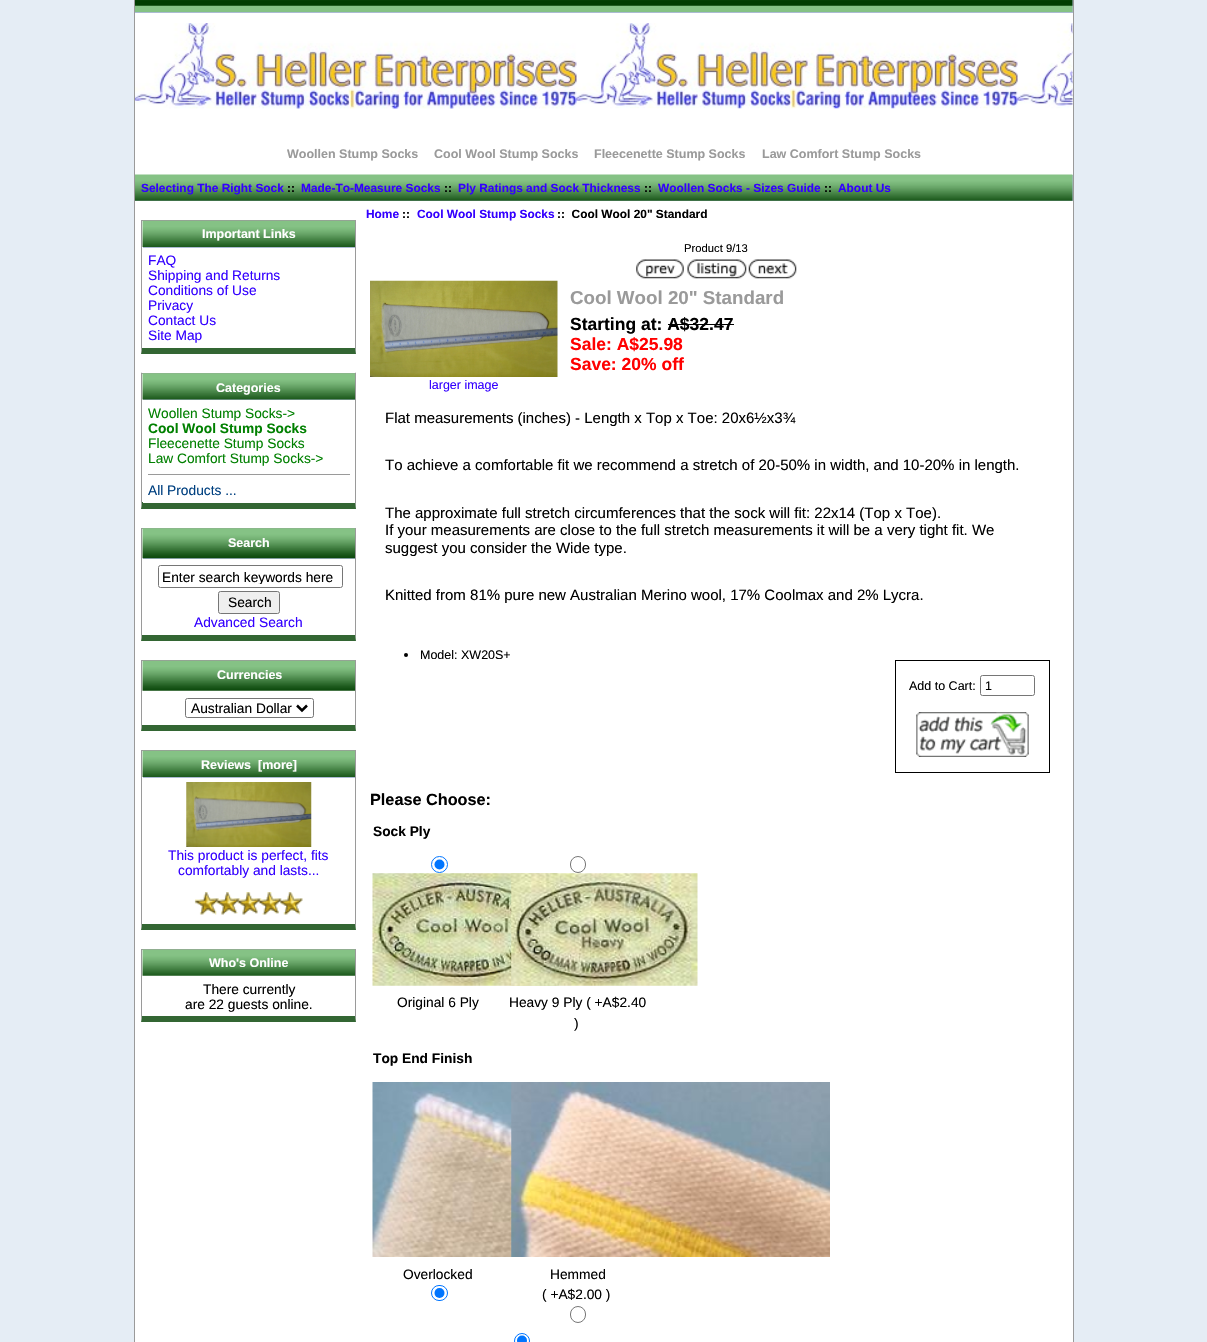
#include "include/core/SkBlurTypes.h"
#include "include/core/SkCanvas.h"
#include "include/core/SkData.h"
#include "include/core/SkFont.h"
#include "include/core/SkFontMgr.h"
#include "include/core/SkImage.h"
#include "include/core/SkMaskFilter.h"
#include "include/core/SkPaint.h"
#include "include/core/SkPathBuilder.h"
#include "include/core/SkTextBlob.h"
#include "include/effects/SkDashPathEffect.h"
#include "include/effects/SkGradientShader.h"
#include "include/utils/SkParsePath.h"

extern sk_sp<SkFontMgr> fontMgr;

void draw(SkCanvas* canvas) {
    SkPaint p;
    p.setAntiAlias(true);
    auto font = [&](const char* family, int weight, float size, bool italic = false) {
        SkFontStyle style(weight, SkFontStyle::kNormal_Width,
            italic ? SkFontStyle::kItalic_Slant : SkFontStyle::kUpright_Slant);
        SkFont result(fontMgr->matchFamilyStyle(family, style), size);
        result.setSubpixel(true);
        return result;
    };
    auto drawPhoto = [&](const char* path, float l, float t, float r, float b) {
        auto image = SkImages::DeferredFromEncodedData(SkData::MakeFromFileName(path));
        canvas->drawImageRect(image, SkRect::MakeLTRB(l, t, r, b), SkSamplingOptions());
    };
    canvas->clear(0xFFE5EDF5);
    p.setColor(0xFFFFFFFF);
    canvas->drawRect(SkRect::MakeLTRB(135, 13, 1073, 1342), p);
    p.setStyle(SkPaint::kStroke_Style);
    p.setStrokeWidth(1);
    p.setColor(0xFF9A9A9A);
    canvas->drawRect(SkRect::MakeLTRB(134.5f, -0.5f, 1073.5f, 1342.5f), p);
    p.setStyle(SkPaint::kFill_Style);
    p.setColor(0xFFABBBD3);
    canvas->drawRect(SkRect::MakeLTRB(135, 0, 1073, 13), p);
    drawPhoto("media/1.png", 135, 0, 1073, 12);
    drawPhoto("media/2.png", 135, 23, 1073, 109);
    drawPhoto("media/3.png", 135, 23, 577, 109);
    auto font1 = font("Liberation Sans", 700, 12.5f);
    p.setColor(0xFF9A9A9A);
    {
        const struct { const char* s; float x, y; } items[] = {
            {"Woollen Stump Socks", 287, 158},
            {"Cool Wool Stump Socks", 434, 158},
            {"Fleecenette Stump Socks", 594, 158},
            {"Law Comfort Stump Socks", 762, 158},
        };
        for (auto [s, x, y] : items) {
            canvas->drawString(s, x, y, font1, p);
        }
    }
    p.setColor(0xFFABBBD3);
    canvas->drawRect(SkRect::MakeLTRB(135, 175, 1073, 201), p);
    drawPhoto("media/4.png", 135, 174, 1073, 201);
    auto font2 = font("Liberation Sans", 700, 11.9f);
    p.setColor(0xFF3300FF);
    canvas->drawString("Selecting The Right Sock", 141, 192, font2, p);
    p.setColor(0xFF000000);
    canvas->drawString("::", 287, 192, font2, p);
    p.setColor(0xFF3300FF);
    canvas->drawString("Made-To-Measure Socks", 301, 192, font2, p);
    p.setColor(0xFF000000);
    canvas->drawString("::", 444, 192, font2, p);
    p.setColor(0xFF3300FF);
    canvas->drawString("Ply Ratings and Sock Thickness", 458, 192, font2, p);
    p.setColor(0xFF000000);
    canvas->drawString("::", 644, 192, font2, p);
    p.setColor(0xFF3300FF);
    canvas->drawString("Woollen Socks - Sizes Guide", 658, 192, font2, p);
    p.setColor(0xFF000000);
    canvas->drawString("::", 824, 192, font2, p);
    p.setColor(0xFF3300FF);
    canvas->drawString("About Us", 838, 192, font2, p);
    p.setColor(0xFF9A9A9A);
    canvas->drawRect(SkRect::MakeLTRB(141, 220, 356, 221), p);
    canvas->drawPath(SkPathBuilder().moveTo(356, 220).lineTo(356, 354).lineTo(355, 348).lineTo(355, 221).close().detach(), p);
    p.setColor(0xFF336633);
    canvas->drawPath(SkPathBuilder().moveTo(356, 354).lineTo(141, 354).lineTo(142, 348).lineTo(355, 348).close().detach(), p);
    p.setColor(0xFF9A9A9A);
    canvas->drawPath(SkPathBuilder().moveTo(141, 354).lineTo(141, 220).lineTo(142, 221).lineTo(142, 348).close().detach(), p);
    p.setColor(0xFFABBBD3);
    canvas->drawRect(SkRect::MakeLTRB(143, 247, 355, 248), p);
    drawPhoto("media/5.png", 142, 220, 355, 247);
    p.setColor(0xFFFFFFFF);
    canvas->drawString("Important Links", 202, 238, font1, p);
    auto font3 = font("Liberation Sans", 400, 13.75f);
    p.setColor(0xFF3300FF);
    {
        const struct { const char* s; float x, y; } items[] = {
            {"FAQ", 148, 265},
            {"Shipping and Returns", 148, 280},
            {"Conditions of Use", 148, 295},
            {"Privacy", 148, 310},
            {"Contact Us", 148, 325},
            {"Site Map", 148, 340},
        };
        for (auto [s, x, y] : items) {
            canvas->drawString(s, x, y, font3, p);
        }
    }
    p.setColor(0xFF9A9A9A);
    canvas->drawRect(SkRect::MakeLTRB(141, 373, 356, 374), p);
    canvas->drawPath(SkPathBuilder().moveTo(356, 372).lineTo(356, 509).lineTo(355, 502).lineTo(355, 374).close().detach(), p);
    p.setColor(0xFF336633);
    canvas->drawPath(SkPathBuilder().moveTo(356, 509).lineTo(141, 509).lineTo(142, 502).lineTo(355, 502).close().detach(), p);
    p.setColor(0xFF9A9A9A);
    canvas->drawPath(SkPathBuilder().moveTo(141, 509).lineTo(141, 372).lineTo(142, 374).lineTo(142, 502).close().detach(), p);
    p.setColor(0xFFABBBD3);
    canvas->drawRect(SkRect::MakeLTRB(143, 399, 355, 400), p);
    drawPhoto("media/6.png", 142, 373, 355, 400);
    p.setColor(0xFFFFFFFF);
    canvas->drawString("Categories", 216, 392, font1, p);
    canvas->drawRect(SkRect::MakeLTRB(143, 502, 355, 503), p);
    p.setColor(0xFF008000);
    canvas->drawString("Woollen Stump Socks->", 148, 418, font3, p);
    auto font4 = font("Liberation Sans", 700, 13.75f);
    canvas->drawString("Cool Wool Stump Socks", 148, 433, font4, p);
    canvas->drawString("Fleecenette Stump Socks", 148, 448, font3, p);
    canvas->drawString("Law Comfort Stump Socks->", 148, 463, font3, p);
    p.setColor(0xFF9A9A9A);
    canvas->drawRect(SkRect::MakeLTRB(148, 474, 350, 475), p);
    p.setColor(0xFF004080);
    canvas->drawString("All Products ...", 148, 495, font3, p);
    p.setColor(0xFF9A9A9A);
    canvas->drawRect(SkRect::MakeLTRB(141, 528, 356, 529), p);
    canvas->drawPath(SkPathBuilder().moveTo(356, 528).lineTo(356, 641).lineTo(355, 635).lineTo(355, 529).close().detach(), p);
    p.setColor(0xFF336633);
    canvas->drawPath(SkPathBuilder().moveTo(356, 641).lineTo(141, 641).lineTo(142, 635).lineTo(355, 635).close().detach(), p);
    p.setColor(0xFF9A9A9A);
    canvas->drawPath(SkPathBuilder().moveTo(141, 641).lineTo(141, 528).lineTo(142, 529).lineTo(142, 635).close().detach(), p);
    p.setColor(0xFFABBBD3);
    canvas->drawRect(SkRect::MakeLTRB(143, 558, 355, 559), p);
    drawPhoto("media/7.png", 142, 528, 355, 559);
    p.setColor(0xFFFFFFFF);
    canvas->drawString("Search", 228, 547, font1, p);
    p.setStyle(SkPaint::kStroke_Style);
    p.setColor(0xFF767676);
    canvas->drawRoundRect(SkRect::MakeLTRB(158.5f, 565.5f, 342.5f, 587.5f), 2, 2, p);
    canvas->save();
    canvas->clipRect(SkRect::MakeLTRB(163, 569, 338, 584));
    p.setStyle(SkPaint::kFill_Style);
    p.setColor(0xFF000000);
    canvas->drawString("Enter search keywords here", 162, 582, font3, p);
    canvas->restore();
    p.setColor(0xFFEFEFEF);
    canvas->drawRoundRect(SkRect::MakeLTRB(218.5f, 591.5f, 279.5f, 613.5f), 2, 2, p);
    p.setStyle(SkPaint::kStroke_Style);
    p.setColor(0xFF767676);
    canvas->drawRoundRect(SkRect::MakeLTRB(218.5f, 591.5f, 279.5f, 613.5f), 2, 2, p);
    p.setStyle(SkPaint::kFill_Style);
    p.setColor(0xFF000000);
    canvas->drawString("Search", 228, 607, font3, p);
    p.setColor(0xFF3300FF);
    canvas->drawString("Advanced Search", 194, 627, font3, p);
    p.setColor(0xFF9A9A9A);
    canvas->drawRect(SkRect::MakeLTRB(141, 660, 356, 661), p);
    canvas->drawPath(SkPathBuilder().moveTo(356, 660).lineTo(356, 731).lineTo(355, 725).lineTo(355, 661).close().detach(), p);
    p.setColor(0xFF336633);
    canvas->drawPath(SkPathBuilder().moveTo(356, 731).lineTo(141, 731).lineTo(142, 725).lineTo(355, 725).close().detach(), p);
    p.setColor(0xFF9A9A9A);
    canvas->drawPath(SkPathBuilder().moveTo(141, 731).lineTo(141, 660).lineTo(142, 661).lineTo(142, 725).close().detach(), p);
    drawPhoto("media/8.png", 142, 660, 355, 691);
    p.setColor(0xFFFFFFFF);
    canvas->drawString("Currencies", 217, 679, font1, p);
    p.setStyle(SkPaint::kStroke_Style);
    p.setColor(0xFF767676);
    canvas->drawRoundRect(SkRect::MakeLTRB(185.5f, 698.5f, 313.5f, 717.5f), 2, 2, p);
    p.setStrokeWidth(2.5f);
    p.setColor(0xFF000000);
    canvas->drawPath(SkPathBuilder().moveTo(297, 705.5f).lineTo(302, 710.5f).lineTo(307, 705.5f).detach(), p);
    p.setStyle(SkPaint::kFill_Style);
    canvas->drawString("Australian Dollar", 191, 713, font3, p);
    p.setColor(0xFF9A9A9A);
    canvas->drawRect(SkRect::MakeLTRB(141, 750, 356, 751), p);
    canvas->drawPath(SkPathBuilder().moveTo(356, 750).lineTo(356, 930).lineTo(355, 924).lineTo(355, 751).close().detach(), p);
    p.setColor(0xFF336633);
    canvas->drawPath(SkPathBuilder().moveTo(356, 930).lineTo(141, 930).lineTo(142, 924).lineTo(355, 924).close().detach(), p);
    p.setColor(0xFF9A9A9A);
    canvas->drawPath(SkPathBuilder().moveTo(141, 930).lineTo(141, 750).lineTo(142, 751).lineTo(142, 924).close().detach(), p);
    p.setColor(0xFFABBBD3);
    canvas->drawRect(SkRect::MakeLTRB(143, 777, 355, 778), p);
    drawPhoto("media/9.png", 142, 750, 355, 777);
    p.setColor(0xFFFFFFFF);
    canvas->drawString("Reviews  [more]", 201, 769, font1, p);
    drawPhoto("media/10.png", 186, 782, 312, 847);
    p.setColor(0xFF3300FF);
    canvas->drawString("This product is perfect, fits", 168, 860, font3, p);
    canvas->drawString("comfortably and lasts...", 178, 875, font3, p);
    drawPhoto("media/11.png", 194, 892, 303, 915);
    p.setColor(0xFF9A9A9A);
    canvas->drawRect(SkRect::MakeLTRB(141, 949, 356, 950), p);
    canvas->drawPath(SkPathBuilder().moveTo(356, 949).lineTo(356, 1022).lineTo(355, 1016).lineTo(355, 950).close().detach(), p);
    p.setColor(0xFF336633);
    canvas->drawPath(SkPathBuilder().moveTo(356, 1022).lineTo(141, 1022).lineTo(142, 1016).lineTo(355, 1016).close().detach(), p);
    p.setColor(0xFF9A9A9A);
    canvas->drawPath(SkPathBuilder().moveTo(141, 1022).lineTo(141, 949).lineTo(142, 950).lineTo(142, 1016).close().detach(), p);
    drawPhoto("media/12.png", 142, 949, 355, 976);
    p.setColor(0xFFFFFFFF);
    canvas->drawString("Who's Online", 209, 967, font1, p);
    p.setColor(0xFF000000);
    canvas->drawString("There currently", 203, 994, font3, p);
    canvas->drawString("are 22 guests online.", 185, 1009, font3, p);
    p.setColor(0xFF3300FF);
    canvas->drawString("Home", 366, 218, font2, p);
    p.setColor(0xFF000000);
    canvas->drawString("::", 402, 218, font2, p);
    p.setColor(0xFF3300FF);
    canvas->drawString("Cool Wool Stump Socks", 417, 218, font2, p);
    p.setColor(0xFF000000);
    canvas->drawString("::  Cool Wool 20\" Standard", 557, 218, font2, p);
    auto font5 = font("Liberation Sans", 400, 11.25f);
    canvas->drawString("Product 9/13", 684, 252, font5, p);
    drawPhoto("media/13.png", 636, 259, 684, 279);
    drawPhoto("media/14.png", 687, 259, 747, 279);
    drawPhoto("media/15.png", 748, 259, 797, 279);
    auto font6 = font("Liberation Sans", 700, 18.75f);
    p.setColor(0xFF9A9A9A);
    canvas->drawString("Cool Wool 20\" Standard", 570, 304, font6, p);
    auto font7 = font("Liberation Sans", 700, 17.5f);
    p.setColor(0xFF000000);
    canvas->drawString("Starting at: A$32.47", 570, 330, font7, p);
    canvas->drawRect(SkRect::MakeLTRB(668, 324, 734, 325), p);
    p.setColor(0xFFFF0000);
    canvas->drawString("Sale: A$25.98", 570, 350, font7, p);
    canvas->drawString("Save: 20% off", 570, 370, font7, p);
    drawPhoto("media/16.png", 370, 280, 558, 377);
    auto font8 = font("Liberation Sans", 400, 12.5f);
    p.setColor(0xFF3300FF);
    canvas->drawString("larger image", 429, 389, font8, p);
    auto font9 = font("Liberation Sans", 400, 15);
    p.setColor(0xFF000000);
    {
        const struct { const char* s; float x, y; } items[] = {
            {"Flat measurements (inches) - Length x Top x Toe: 20x6½x3¾", 385, 423},
            {"To achieve a comfortable fit we recommend a stretch of 20-50% in width, and 10-20% in length.", 385, 470},
            {"The approximate full stretch circumferences that the sock will fit: 22x14 (Top x Toe).", 385, 518},
            {"If your measurements are close to the full stretch measurements it will be a very tight fit. We", 385, 535},
            {"suggest you consider the Wide type.", 385, 553},
            {"Knitted from 81% pure new Australian Merino wool, 17% Coolmax and 2% Lycra.", 385, 600},
        };
        for (auto [s, x, y] : items) {
            canvas->drawString(s, x, y, font9, p);
        }
    }
    canvas->drawCircle(406, 655, 2, p);
    canvas->drawString("Model: XW20S+", 420, 659, font8, p);
    p.setStyle(SkPaint::kStroke_Style);
    p.setStrokeWidth(1);
    canvas->drawRect(SkRect::MakeLTRB(895.5f, 660.5f, 1049.5f, 772.5f), p);
    p.setStyle(SkPaint::kFill_Style);
    canvas->drawString("Add to Cart:", 909, 690, font8, p);
    p.setStyle(SkPaint::kStroke_Style);
    p.setColor(0xFF767676);
    canvas->drawRoundRect(SkRect::MakeLTRB(980.5f, 675.5f, 1034.5f, 695.5f), 2, 2, p);
    p.setStyle(SkPaint::kFill_Style);
    p.setColor(0xFF000000);
    canvas->drawString("1", 985, 690, font8, p);
    drawPhoto("media/17.png", 916, 712, 1029, 757);
    auto font10 = font("Liberation Sans", 700, 16.25f);
    canvas->drawString("Please Choose:", 370, 805, font10, p);
    canvas->drawString("Sock Ply", 373, 836, font4, p);
    p.setStyle(SkPaint::kStroke_Style);
    p.setColor(0xFF0075FF);
    canvas->drawCircle(439.5f, 864.5f, 8, p);
    p.setStyle(SkPaint::kFill_Style);
    canvas->drawCircle(439.5f, 864.5f, 5, p);
    drawPhoto("media/18.png", 372, 873, 558, 986);
    p.setColor(0xFF000000);
    canvas->drawString("Original 6 Ply", 397, 1007, font3, p);
    p.setStyle(SkPaint::kStroke_Style);
    p.setColor(0xFF767676);
    canvas->drawRoundRect(SkRect::MakeLTRB(570.5f, 856.5f, 585.5f, 872.5f), 7.5f, 7.5f, p);
    drawPhoto("media/19.png", 511, 873, 698, 986);
    p.setStyle(SkPaint::kFill_Style);
    p.setColor(0xFF000000);
    canvas->drawString("Heavy 9 Ply ( +A$2.40", 509, 1007, font3, p);
    canvas->drawString(")", 574, 1028, font3, p);
    canvas->drawString("Top End Finish", 373, 1063, font4, p);
    drawPhoto("media/20.png", 372, 1082, 512, 1257);
    canvas->drawString("Overlocked", 403, 1279, font3, p);
    p.setStyle(SkPaint::kStroke_Style);
    p.setColor(0xFF0075FF);
    canvas->drawRoundRect(SkRect::MakeLTRB(431.5f, 1285.5f, 447.5f, 1300.5f), 7.5f, 7.5f, p);
    p.setStyle(SkPaint::kFill_Style);
    canvas->drawCircle(439.5f, 1293, 5, p);
    drawPhoto("media/21.png", 511, 1082, 830, 1257);
    p.setColor(0xFF000000);
    canvas->drawString("Hemmed", 550, 1279, font3, p);
    canvas->drawString("( +A$2.00 )", 542, 1299, font3, p);
    p.setStyle(SkPaint::kStroke_Style);
    p.setColor(0xFF767676);
    canvas->drawRoundRect(SkRect::MakeLTRB(570.5f, 1306.5f, 585.5f, 1322.5f), 7.5f, 7.5f, p);
    p.setColor(0xFF0075FF);
    canvas->drawCircle(522, 1341, 7.5f, p);
    p.setStyle(SkPaint::kFill_Style);
    canvas->drawCircle(522, 1340.5f, 5, p);
}
